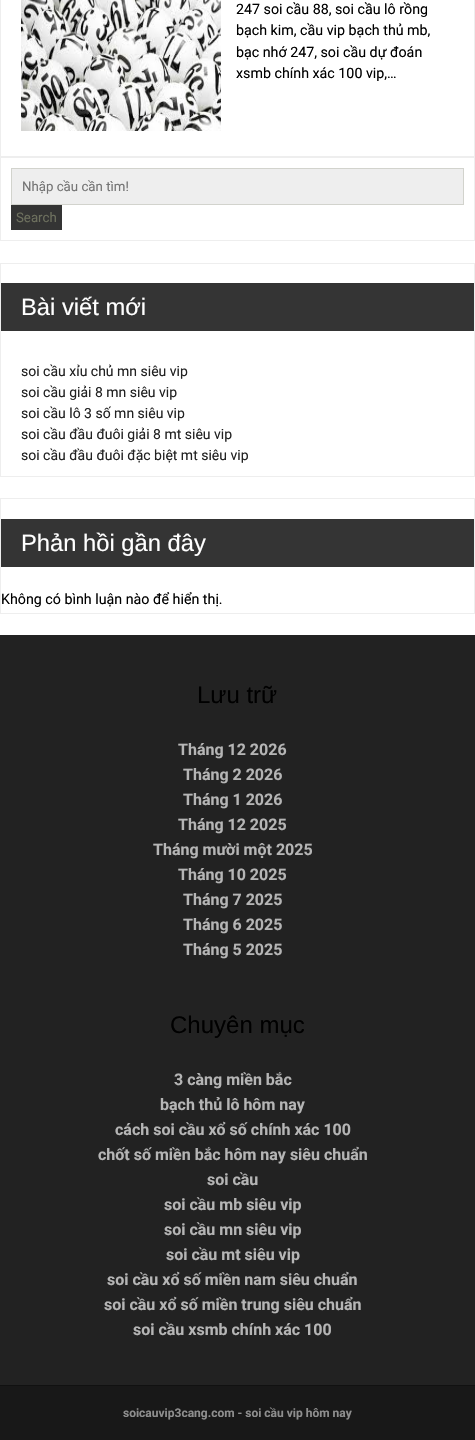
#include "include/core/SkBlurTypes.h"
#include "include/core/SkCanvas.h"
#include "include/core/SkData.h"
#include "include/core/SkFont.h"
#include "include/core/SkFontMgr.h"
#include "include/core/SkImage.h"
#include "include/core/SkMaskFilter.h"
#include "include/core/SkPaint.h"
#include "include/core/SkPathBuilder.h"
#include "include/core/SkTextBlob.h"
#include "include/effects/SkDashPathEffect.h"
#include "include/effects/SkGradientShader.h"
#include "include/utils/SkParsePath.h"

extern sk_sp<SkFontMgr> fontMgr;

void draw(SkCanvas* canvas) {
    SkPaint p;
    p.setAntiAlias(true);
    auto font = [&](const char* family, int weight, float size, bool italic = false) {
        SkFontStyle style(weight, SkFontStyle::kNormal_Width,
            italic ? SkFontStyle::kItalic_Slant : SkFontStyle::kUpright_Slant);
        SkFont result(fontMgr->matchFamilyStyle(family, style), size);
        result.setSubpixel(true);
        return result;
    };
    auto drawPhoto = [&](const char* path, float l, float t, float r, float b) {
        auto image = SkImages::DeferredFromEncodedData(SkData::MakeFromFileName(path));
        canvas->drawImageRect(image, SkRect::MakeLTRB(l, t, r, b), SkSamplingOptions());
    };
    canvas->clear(0xFFFFFFFF);
    p.setStyle(SkPaint::kStroke_Style);
    p.setStrokeWidth(1);
    p.setColor(0xFFEEEEEE);
    canvas->drawRect(SkRect::MakeLTRB(0.5f, -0.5f, 474.5f, 156.5f), p);
    drawPhoto("media/1.png", 21, 0, 221, 131);
    auto font1 = font("Roboto", 400, 14.25f);
    p.setStyle(SkPaint::kFill_Style);
    p.setColor(0xFF000000);
    {
        const struct { const char* s; float x, y; } items[] = {
            {"247 soi cầu 88, soi cầu lô rồng", 236, 14},
            {"bạch kim, cầu vip bạch thủ mb,", 236, 35},
            {"bạc nhớ 247, soi cầu dự đoán", 236, 57},
            {"xsmb chính xác 100 vip,…", 236, 78},
        };
        for (auto [s, x, y] : items) {
            canvas->drawString(s, x, y, font1, p);
        }
    }
    p.setStyle(SkPaint::kStroke_Style);
    p.setColor(0xFFEEEEEE);
    canvas->drawRect(SkRect::MakeLTRB(0.5f, 157.5f, 474.5f, 240.5f), p);
    p.setStyle(SkPaint::kFill_Style);
    canvas->drawRect(SkRect::MakeLTRB(11.5f, 168.5f, 463.5f, 204.5f), p);
    p.setStyle(SkPaint::kStroke_Style);
    p.setColor(0xFFD2D3CD);
    canvas->drawRect(SkRect::MakeLTRB(11.5f, 168.5f, 463.5f, 204.5f), p);
    auto font2 = font("Roboto", 400, 13.25f);
    p.setStyle(SkPaint::kFill_Style);
    p.setColor(0xFF757575);
    canvas->drawString("Nhập cầu cần tìm!", 22, 191, font2, p);
    p.setColor(0xFF343434);
    canvas->drawRect(SkRect::MakeLTRB(11, 205, 62, 230), p);
    p.setColor(0xFF6D705E);
    canvas->drawString("Search", 16, 222, font2, p);
    p.setStyle(SkPaint::kStroke_Style);
    p.setColor(0xFFEEEEEE);
    canvas->drawRect(SkRect::MakeLTRB(0.5f, 263.5f, 474.5f, 476.5f), p);
    p.setStyle(SkPaint::kFill_Style);
    p.setColor(0xFF343434);
    canvas->drawRect(SkRect::MakeLTRB(1, 283, 474, 331), p);
    auto font3 = font("Liberation Sans", 400, 23.75f);
    p.setColor(0xFFFFFFFF);
    canvas->drawString("Bài viết mới", 21, 315, font3, p);
    auto font4 = font("Roboto", 400, 14);
    p.setColor(0xFF222222);
    {
        const struct { const char* s; float x, y; } items[] = {
            {"soi cầu xỉu chủ mn siêu vip", 21, 376},
            {"soi cầu giải 8 mn siêu vip", 21, 397},
            {"soi cầu lô 3 số mn siêu vip", 21, 418},
            {"soi cầu đầu đuôi giải 8 mt siêu vip", 21, 439},
            {"soi cầu đầu đuôi đặc biệt mt siêu vip", 21, 460},
        };
        for (auto [s, x, y] : items) {
            canvas->drawString(s, x, y, font4, p);
        }
    }
    p.setStyle(SkPaint::kStroke_Style);
    p.setColor(0xFFEEEEEE);
    canvas->drawRect(SkRect::MakeLTRB(0.5f, 498.5f, 474.5f, 613.5f), p);
    p.setStyle(SkPaint::kFill_Style);
    p.setColor(0xFF343434);
    canvas->drawRect(SkRect::MakeLTRB(1, 519, 474, 567), p);
    p.setColor(0xFFFFFFFF);
    canvas->drawString("Phản hồi gần đây", 21, 551, font3, p);
    p.setColor(0xFF000000);
    canvas->drawString("Không có bình luận nào để hiển thị.", 1, 604, font1, p);
    p.setColor(0xFF222222);
    canvas->drawRect(SkRect::MakeLTRB(0, 635, 475, 1385), p);
    auto font5 = font("Liberation Sans", 400, 24);
    p.setColor(0xFF000000);
    canvas->drawString("Lưu trữ", 197, 703, font5, p);
    auto font6 = font("Roboto", 700, 16);
    p.setColor(0xFFB5B5B5);
    {
        const struct { const char* s; float x, y; } items[] = {
            {"Tháng 12 2026", 178, 755},
            {"Tháng 2 2026", 183, 780},
            {"Tháng 1 2026", 183, 805},
            {"Tháng 12 2025", 178, 830},
            {"Tháng mười một 2025", 153, 855},
            {"Tháng 10 2025", 178, 880},
            {"Tháng 7 2025", 183, 905},
            {"Tháng 6 2025", 183, 930},
            {"Tháng 5 2025", 183, 955},
        };
        for (auto [s, x, y] : items) {
            canvas->drawString(s, x, y, font6, p);
        }
    }
    p.setColor(0xFF000000);
    canvas->drawString("Chuyên mục", 170, 1033, font5, p);
    p.setColor(0xFFB5B5B5);
    {
        const struct { const char* s; float x, y; } items[] = {
            {"3 càng miền bắc", 174, 1085},
            {"bạch thủ lô hôm nay", 160, 1110},
            {"cách soi cầu xổ số chính xác 100", 115, 1135},
            {"chốt số miền bắc hôm nay siêu chuẩn", 98, 1160},
            {"soi cầu", 207, 1185},
            {"soi cầu mb siêu vip", 164, 1210},
            {"soi cầu mn siêu vip", 164, 1235},
            {"soi cầu mt siêu vip", 166, 1260},
            {"soi cầu xổ số miền nam siêu chuẩn", 107, 1285},
            {"soi cầu xổ số miền trung siêu chuẩn", 104, 1310},
            {"soi cầu xsmb chính xác 100", 133, 1335},
        };
        for (auto [s, x, y] : items) {
            canvas->drawString(s, x, y, font6, p);
        }
    }
    p.setColor(0xFF181818);
    canvas->drawRect(SkRect::MakeLTRB(0, 1386, 475, 1440), p);
    p.setColor(0xFF111111);
    canvas->drawRect(SkRect::MakeLTRB(0, 1385, 475, 1386), p);
    auto font7 = font("Roboto", 700, 12);
    p.setColor(0xFF8E8E8E);
    canvas->drawString("soicauvip3cang.com - soi cầu vip hôm nay", 123, 1417, font7, p);
}
